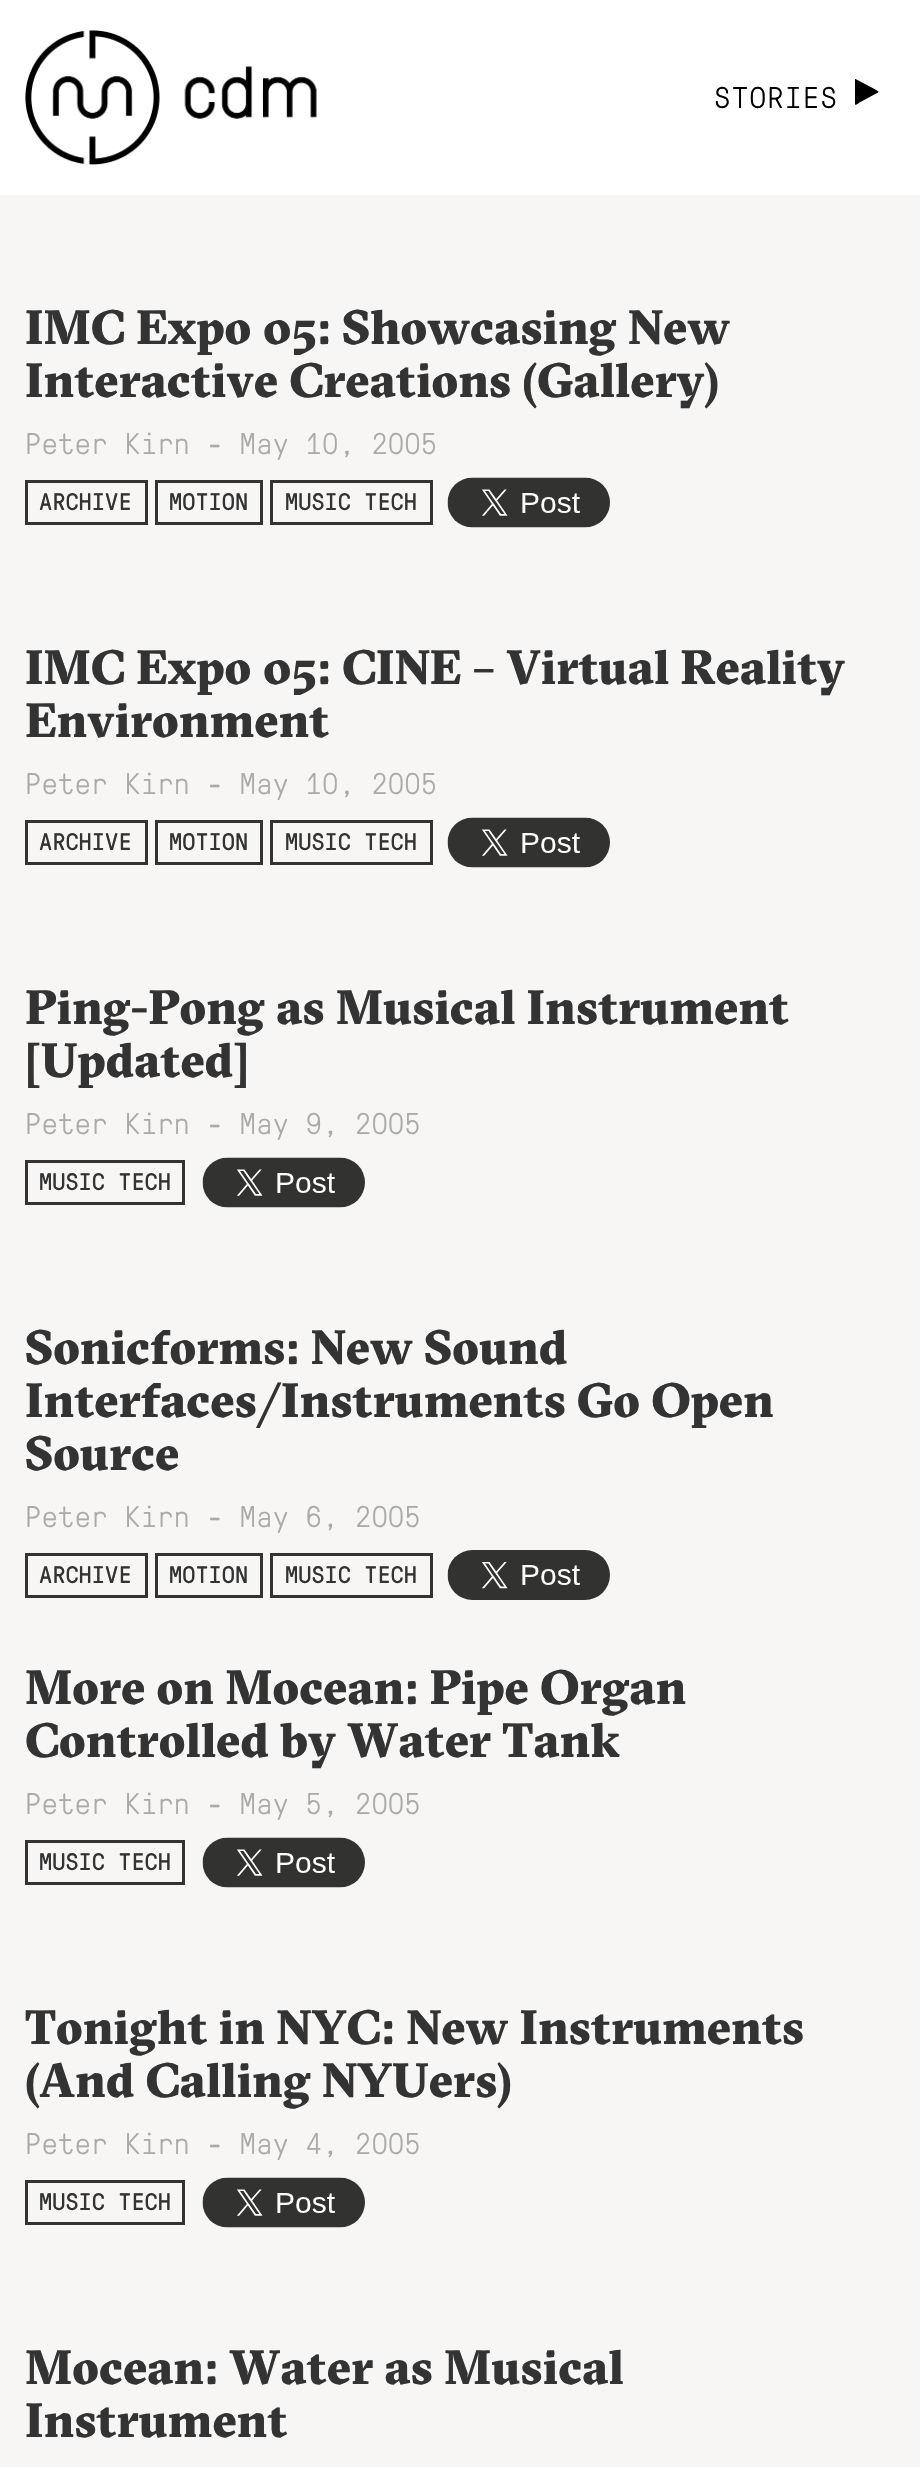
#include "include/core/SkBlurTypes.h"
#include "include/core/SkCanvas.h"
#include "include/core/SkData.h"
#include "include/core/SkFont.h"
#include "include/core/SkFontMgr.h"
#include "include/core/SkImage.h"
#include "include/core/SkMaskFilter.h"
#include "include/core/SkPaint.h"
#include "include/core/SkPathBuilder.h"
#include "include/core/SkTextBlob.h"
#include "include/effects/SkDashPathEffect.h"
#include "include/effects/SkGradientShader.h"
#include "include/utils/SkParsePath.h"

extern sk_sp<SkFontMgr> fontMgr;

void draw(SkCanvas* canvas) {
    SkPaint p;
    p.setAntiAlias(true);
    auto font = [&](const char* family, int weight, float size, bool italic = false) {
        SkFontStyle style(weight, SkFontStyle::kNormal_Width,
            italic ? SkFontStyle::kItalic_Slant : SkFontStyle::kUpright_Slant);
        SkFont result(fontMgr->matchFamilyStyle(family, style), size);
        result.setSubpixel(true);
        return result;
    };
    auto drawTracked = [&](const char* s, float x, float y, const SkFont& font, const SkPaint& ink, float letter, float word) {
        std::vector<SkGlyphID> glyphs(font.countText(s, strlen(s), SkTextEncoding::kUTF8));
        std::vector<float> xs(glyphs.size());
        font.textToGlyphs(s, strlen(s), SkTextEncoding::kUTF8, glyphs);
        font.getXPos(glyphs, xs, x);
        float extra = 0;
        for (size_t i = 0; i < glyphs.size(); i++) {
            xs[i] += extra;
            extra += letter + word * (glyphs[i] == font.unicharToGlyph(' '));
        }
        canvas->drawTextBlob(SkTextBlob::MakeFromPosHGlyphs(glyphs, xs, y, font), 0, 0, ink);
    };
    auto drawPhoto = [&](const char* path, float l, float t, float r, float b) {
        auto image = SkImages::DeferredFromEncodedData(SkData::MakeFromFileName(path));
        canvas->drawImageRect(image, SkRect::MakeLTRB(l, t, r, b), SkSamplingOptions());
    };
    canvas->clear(0xFFF7F6F4);
    p.setColor(0xFFFFFFFF);
    canvas->drawRect(SkRect::MakeLTRB(0, 0, 920, 195), p);
    drawPhoto("media/1.png", 25, 30, 317, 165);
    auto font1 = font("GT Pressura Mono", 300, 30);
    p.setColor(0xFF000000);
    drawTracked("STORIES", 714, 108, font1, p, 1.25f, 0);
    canvas->drawPath(SkPathBuilder().moveTo(878, 92.5f).lineTo(859.5f, 102.5f).cubicTo(859, 103, 856, 105.5f, 855, 104.5f).lineTo(855, 79).lineTo(855.5f, 79).lineTo(874.5f, 89).lineTo(878.5f, 91.5f).close().detach(), p);
    auto font2 = font("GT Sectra", 900, 48);
    p.setColor(0xFF333333);
    canvas->drawString("IMC Expo 05: Showcasing New", 25, 344, font2, p);
    canvas->drawString("Interactive Creations (Gallery)", 25, 397, font2, p);
    p.setColor(0xFFAAAAAA);
    canvas->drawString("Peter Kirn - May 10, 2005", 25, 454, font1, p);
    p.setStyle(SkPaint::kStroke_Style);
    p.setStrokeWidth(3);
    p.setColor(0xFF333333);
    canvas->drawRect(SkRect::MakeLTRB(26.5f, 481.5f, 146.5f, 523.5f), p);
    auto font3 = font("GT Pressura Mono", 400, 24);
    p.setStyle(SkPaint::kFill_Style);
    canvas->drawString("ARCHIVE", 39, 510, font3, p);
    p.setStyle(SkPaint::kStroke_Style);
    canvas->drawRect(SkRect::MakeLTRB(156.5f, 481.5f, 261.5f, 523.5f), p);
    p.setStyle(SkPaint::kFill_Style);
    canvas->drawString("MOTION", 169, 510, font3, p);
    p.setStyle(SkPaint::kStroke_Style);
    canvas->drawRect(SkRect::MakeLTRB(271.5f, 481.5f, 431.5f, 523.5f), p);
    p.setStyle(SkPaint::kFill_Style);
    canvas->drawString("MUSIC TECH", 285, 510, font3, p);
    drawPhoto("media/2.png", 447, 477, 610, 528);
    canvas->drawString("IMC Expo 05: CINE – Virtual Reality", 25, 684, font2, p);
    canvas->drawString("Environment", 25, 737, font2, p);
    p.setColor(0xFFAAAAAA);
    canvas->drawString("Peter Kirn - May 10, 2005", 25, 794, font1, p);
    p.setStyle(SkPaint::kStroke_Style);
    p.setColor(0xFF333333);
    canvas->drawRect(SkRect::MakeLTRB(26.5f, 821.5f, 146.5f, 863.5f), p);
    p.setStyle(SkPaint::kFill_Style);
    canvas->drawString("ARCHIVE", 39, 850, font3, p);
    p.setStyle(SkPaint::kStroke_Style);
    canvas->drawRect(SkRect::MakeLTRB(156.5f, 821.5f, 261.5f, 863.5f), p);
    p.setStyle(SkPaint::kFill_Style);
    canvas->drawString("MOTION", 169, 850, font3, p);
    p.setStyle(SkPaint::kStroke_Style);
    canvas->drawRect(SkRect::MakeLTRB(271.5f, 821.5f, 431.5f, 863.5f), p);
    p.setStyle(SkPaint::kFill_Style);
    canvas->drawString("MUSIC TECH", 285, 850, font3, p);
    drawPhoto("media/3.png", 447, 817, 610, 868);
    canvas->drawString("Ping-Pong as Musical Instrument", 25, 1024, font2, p);
    canvas->drawString("[Updated]", 25, 1077, font2, p);
    p.setColor(0xFFAAAAAA);
    canvas->drawString("Peter Kirn - May 9, 2005", 25, 1134, font1, p);
    p.setStyle(SkPaint::kStroke_Style);
    p.setColor(0xFF333333);
    canvas->drawRect(SkRect::MakeLTRB(26.5f, 1161.5f, 183.5f, 1203.5f), p);
    p.setStyle(SkPaint::kFill_Style);
    canvas->drawString("MUSIC TECH", 39, 1190, font3, p);
    drawPhoto("media/4.png", 202, 1157, 365, 1208);
    {
        const struct { const char* s; float x, y; } items[] = {
            {"Sonicforms: New Sound", 25, 1364},
            {"Interfaces/Instruments Go Open", 25, 1417},
            {"Source", 25, 1470},
        };
        for (auto [s, x, y] : items) {
            canvas->drawString(s, x, y, font2, p);
        }
    }
    p.setColor(0xFFAAAAAA);
    canvas->drawString("Peter Kirn - May 6, 2005", 25, 1527, font1, p);
    p.setStyle(SkPaint::kStroke_Style);
    p.setColor(0xFF333333);
    canvas->drawRect(SkRect::MakeLTRB(26.5f, 1554.5f, 146.5f, 1596.5f), p);
    p.setStyle(SkPaint::kFill_Style);
    canvas->drawString("ARCHIVE", 39, 1583, font3, p);
    p.setStyle(SkPaint::kStroke_Style);
    canvas->drawRect(SkRect::MakeLTRB(156.5f, 1554.5f, 261.5f, 1596.5f), p);
    p.setStyle(SkPaint::kFill_Style);
    canvas->drawString("MOTION", 169, 1583, font3, p);
    p.setStyle(SkPaint::kStroke_Style);
    canvas->drawRect(SkRect::MakeLTRB(271.5f, 1554.5f, 431.5f, 1596.5f), p);
    p.setStyle(SkPaint::kFill_Style);
    canvas->drawString("MUSIC TECH", 285, 1583, font3, p);
    drawPhoto("media/5.png", 447, 1550, 610, 1600);
    canvas->drawString("More on Mocean: Pipe Organ", 25, 1704, font2, p);
    canvas->drawString("Controlled by Water Tank", 25, 1757, font2, p);
    p.setColor(0xFFAAAAAA);
    canvas->drawString("Peter Kirn - May 5, 2005", 25, 1814, font1, p);
    p.setStyle(SkPaint::kStroke_Style);
    p.setColor(0xFF333333);
    canvas->drawRect(SkRect::MakeLTRB(26.5f, 1841.5f, 183.5f, 1883.5f), p);
    p.setStyle(SkPaint::kFill_Style);
    canvas->drawString("MUSIC TECH", 39, 1870, font3, p);
    drawPhoto("media/4.png", 202, 1837, 365, 1888);
    canvas->drawString("Tonight in NYC: New Instruments", 25, 2044, font2, p);
    canvas->drawString("(And Calling NYUers)", 25, 2097, font2, p);
    p.setColor(0xFFAAAAAA);
    canvas->drawString("Peter Kirn - May 4, 2005", 25, 2154, font1, p);
    p.setStyle(SkPaint::kStroke_Style);
    p.setColor(0xFF333333);
    canvas->drawRect(SkRect::MakeLTRB(26.5f, 2181.5f, 183.5f, 2223.5f), p);
    p.setStyle(SkPaint::kFill_Style);
    canvas->drawString("MUSIC TECH", 39, 2210, font3, p);
    drawPhoto("media/4.png", 202, 2177, 365, 2228);
    canvas->drawString("Mocean: Water as Musical", 25, 2384, font2, p);
    canvas->drawString("Instrument", 25, 2437, font2, p);
}
